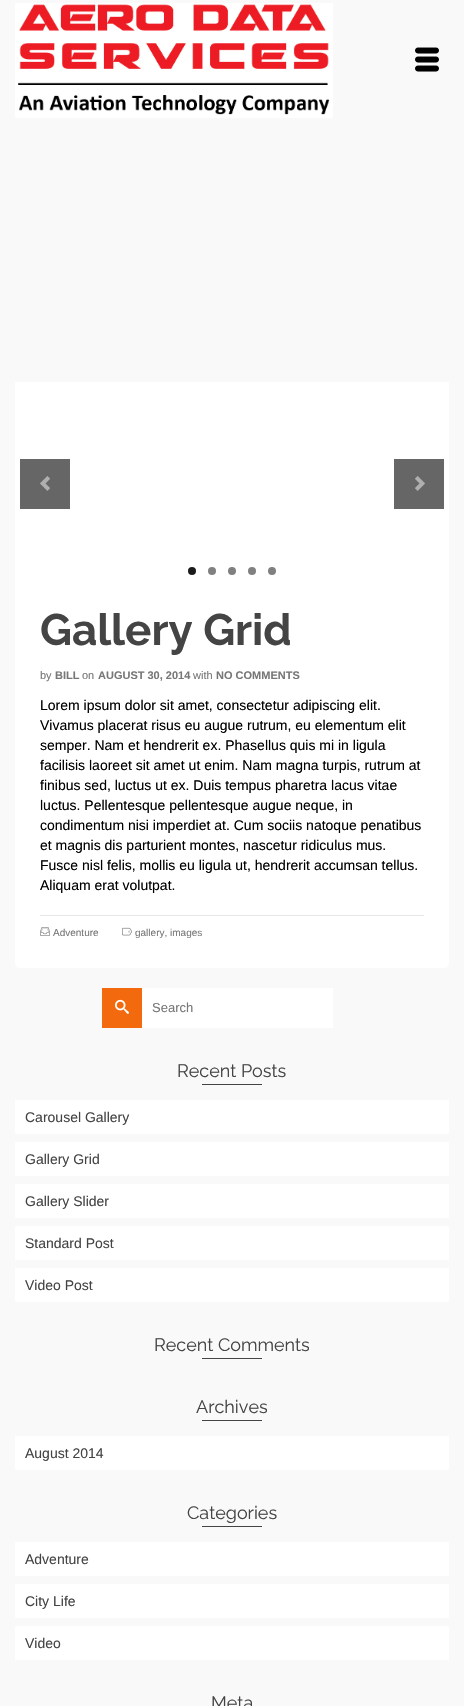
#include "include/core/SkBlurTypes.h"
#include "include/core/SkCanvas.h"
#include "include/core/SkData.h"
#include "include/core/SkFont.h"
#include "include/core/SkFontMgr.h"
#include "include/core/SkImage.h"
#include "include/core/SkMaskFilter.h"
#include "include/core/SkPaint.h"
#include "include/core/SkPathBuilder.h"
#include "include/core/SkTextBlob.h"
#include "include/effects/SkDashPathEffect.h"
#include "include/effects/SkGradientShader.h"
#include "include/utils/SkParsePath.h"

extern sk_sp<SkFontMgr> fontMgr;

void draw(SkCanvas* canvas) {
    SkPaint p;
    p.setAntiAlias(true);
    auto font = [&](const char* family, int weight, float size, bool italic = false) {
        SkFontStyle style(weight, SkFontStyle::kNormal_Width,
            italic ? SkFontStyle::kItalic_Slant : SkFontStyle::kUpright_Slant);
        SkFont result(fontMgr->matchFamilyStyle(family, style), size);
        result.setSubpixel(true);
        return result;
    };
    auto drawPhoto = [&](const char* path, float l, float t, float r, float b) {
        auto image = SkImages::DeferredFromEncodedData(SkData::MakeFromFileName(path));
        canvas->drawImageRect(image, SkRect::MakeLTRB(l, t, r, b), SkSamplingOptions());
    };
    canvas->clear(0xFFF9F9F9);
    drawPhoto("media/1.png", 15, 3, 333, 118);
    drawPhoto("media/2.png", 415, 47, 439, 72);
    p.setColor(0xFFFFFFFF);
    canvas->drawPath(SkPathBuilder().moveTo(15, 382).lineTo(449, 382).lineTo(449, 963).cubicTo(449, 966, 447, 968, 444, 968).lineTo(20, 968).cubicTo(17, 968, 15, 966, 15, 963).close().detach(), p);
    p.setColor(0xFF666666);
    canvas->drawRect(SkRect::MakeLTRB(20, 459, 70, 509), p);
    drawPhoto("media/3.png", 40, 476, 50, 491);
    canvas->drawRect(SkRect::MakeLTRB(394, 459, 444, 509), p);
    drawPhoto("media/4.png", 415, 476, 425, 491);
    p.setColor(0xFF1A1A1A);
    canvas->drawCircle(192, 571, 4, p);
    p.setColor(0xFF808080);
    canvas->drawCircle(212, 571, 4, p);
    canvas->drawCircle(232, 571, 4, p);
    canvas->drawCircle(252, 571, 4, p);
    canvas->drawCircle(272, 571, 4, p);
    auto font1 = font("Raleway", 700, 44);
    p.setColor(0xFF444444);
    canvas->drawString("Gallery Grid", 40, 645, font1, p);
    auto font2 = font("Liberation Sans", 400, 11);
    p.setColor(0xFF777777);
    canvas->drawString("by", 40, 679, font2, p);
    auto font3 = font("Liberation Sans", 700, 11);
    canvas->drawString("BILL", 55, 679, font3, p);
    canvas->drawString("on", 82, 679, font2, p);
    canvas->drawString("AUGUST 30, 2014", 98, 679, font3, p);
    canvas->drawString("with", 193, 679, font2, p);
    canvas->drawString("NO COMMENTS", 216, 679, font3, p);
    auto font4 = font("Liberation Sans", 400, 14);
    p.setColor(0xFF000000);
    {
        const struct { const char* s; float x, y; } items[] = {
            {"Lorem ipsum dolor sit amet, consectetur adipiscing elit.", 40, 710},
            {"Vivamus placerat risus eu augue rutrum, eu elementum elit", 40, 730},
            {"semper. Nam et hendrerit ex. Phasellus quis mi in ligula", 40, 750},
            {"facilisis laoreet sit amet ut enim. Nam magna turpis, rutrum at", 40, 770},
            {"finibus sed, luctus ut ex. Duis tempus pharetra lacus vitae", 40, 790},
            {"luctus. Pellentesque pellentesque augue neque, in", 40, 810},
            {"condimentum nisi imperdiet at. Cum sociis natoque penatibus", 40, 830},
            {"et magnis dis parturient montes, nascetur ridiculus mus.", 40, 850},
            {"Fusce nisl felis, mollis eu ligula ut, hendrerit accumsan tellus.", 40, 870},
            {"Aliquam erat volutpat.", 40, 890},
        };
        for (auto [s, x, y] : items) {
            canvas->drawString(s, x, y, font4, p);
        }
    }
    p.setColor(0xFFE6E6E6);
    canvas->drawRect(SkRect::MakeLTRB(40, 915, 424, 916), p);
    drawPhoto("media/5.png", 40, 927, 50, 936);
    auto font5 = font("Liberation Sans", 400, 10);
    p.setColor(0xFF777777);
    canvas->drawString("Adventure", 53, 936, font5, p);
    drawPhoto("media/6.png", 122, 927, 132, 936);
    canvas->drawString("gallery, images", 135, 936, font5, p);
    p.setColor(0xFFF3690E);
    canvas->drawRect(SkRect::MakeLTRB(102, 988, 142, 1028), p);
    drawPhoto("media/7.png", 115, 999, 129, 1014);
    p.setColor(0xFFFFFFFF);
    canvas->drawRect(SkRect::MakeLTRB(142, 988, 333, 1028), p);
    auto font6 = font("Liberation Sans", 400, 13);
    p.setColor(0xFF777777);
    canvas->drawString("Search", 152, 1012, font6, p);
    auto font7 = font("Raleway", 400, 18);
    p.setColor(0xFF444444);
    canvas->drawString("Recent Posts", 177, 1077, font7, p);
    canvas->drawRect(SkRect::MakeLTRB(202, 1084, 262, 1085), p);
    p.setColor(0xFFFFFFFF);
    canvas->drawRect(SkRect::MakeLTRB(15, 1100, 449, 1134), p);
    p.setColor(0xFF444444);
    canvas->drawString("Carousel Gallery", 25, 1122, font4, p);
    p.setColor(0xFFFFFFFF);
    canvas->drawRect(SkRect::MakeLTRB(15, 1142, 449, 1176), p);
    p.setColor(0xFF444444);
    canvas->drawString("Gallery Grid", 25, 1164, font4, p);
    p.setColor(0xFFFFFFFF);
    canvas->drawRect(SkRect::MakeLTRB(15, 1184, 449, 1218), p);
    p.setColor(0xFF444444);
    canvas->drawString("Gallery Slider", 25, 1206, font4, p);
    p.setColor(0xFFFFFFFF);
    canvas->drawRect(SkRect::MakeLTRB(15, 1226, 449, 1260), p);
    p.setColor(0xFF444444);
    canvas->drawString("Standard Post", 25, 1248, font4, p);
    p.setColor(0xFFFFFFFF);
    canvas->drawRect(SkRect::MakeLTRB(15, 1268, 449, 1302), p);
    p.setColor(0xFF444444);
    canvas->drawString("Video Post", 25, 1290, font4, p);
    canvas->drawString("Recent Comments", 154, 1351, font7, p);
    canvas->drawRect(SkRect::MakeLTRB(202, 1358, 262, 1359), p);
    canvas->drawString("Archives", 196, 1413, font7, p);
    canvas->drawRect(SkRect::MakeLTRB(202, 1420, 262, 1421), p);
    p.setColor(0xFFFFFFFF);
    canvas->drawRect(SkRect::MakeLTRB(15, 1436, 449, 1470), p);
    p.setColor(0xFF444444);
    canvas->drawString("August 2014", 25, 1458, font4, p);
    canvas->drawString("Categories", 187, 1519, font7, p);
    canvas->drawRect(SkRect::MakeLTRB(202, 1526, 262, 1527), p);
    p.setColor(0xFFFFFFFF);
    canvas->drawRect(SkRect::MakeLTRB(15, 1542, 449, 1576), p);
    p.setColor(0xFF444444);
    canvas->drawString("Adventure", 25, 1564, font4, p);
    p.setColor(0xFFFFFFFF);
    canvas->drawRect(SkRect::MakeLTRB(15, 1584, 449, 1618), p);
    p.setColor(0xFF444444);
    canvas->drawString("City Life", 25, 1606, font4, p);
    p.setColor(0xFFFFFFFF);
    canvas->drawRect(SkRect::MakeLTRB(15, 1626, 449, 1660), p);
    p.setColor(0xFF444444);
    canvas->drawString("Video", 25, 1648, font4, p);
    canvas->drawString("Meta", 211, 1709, font7, p);
}
